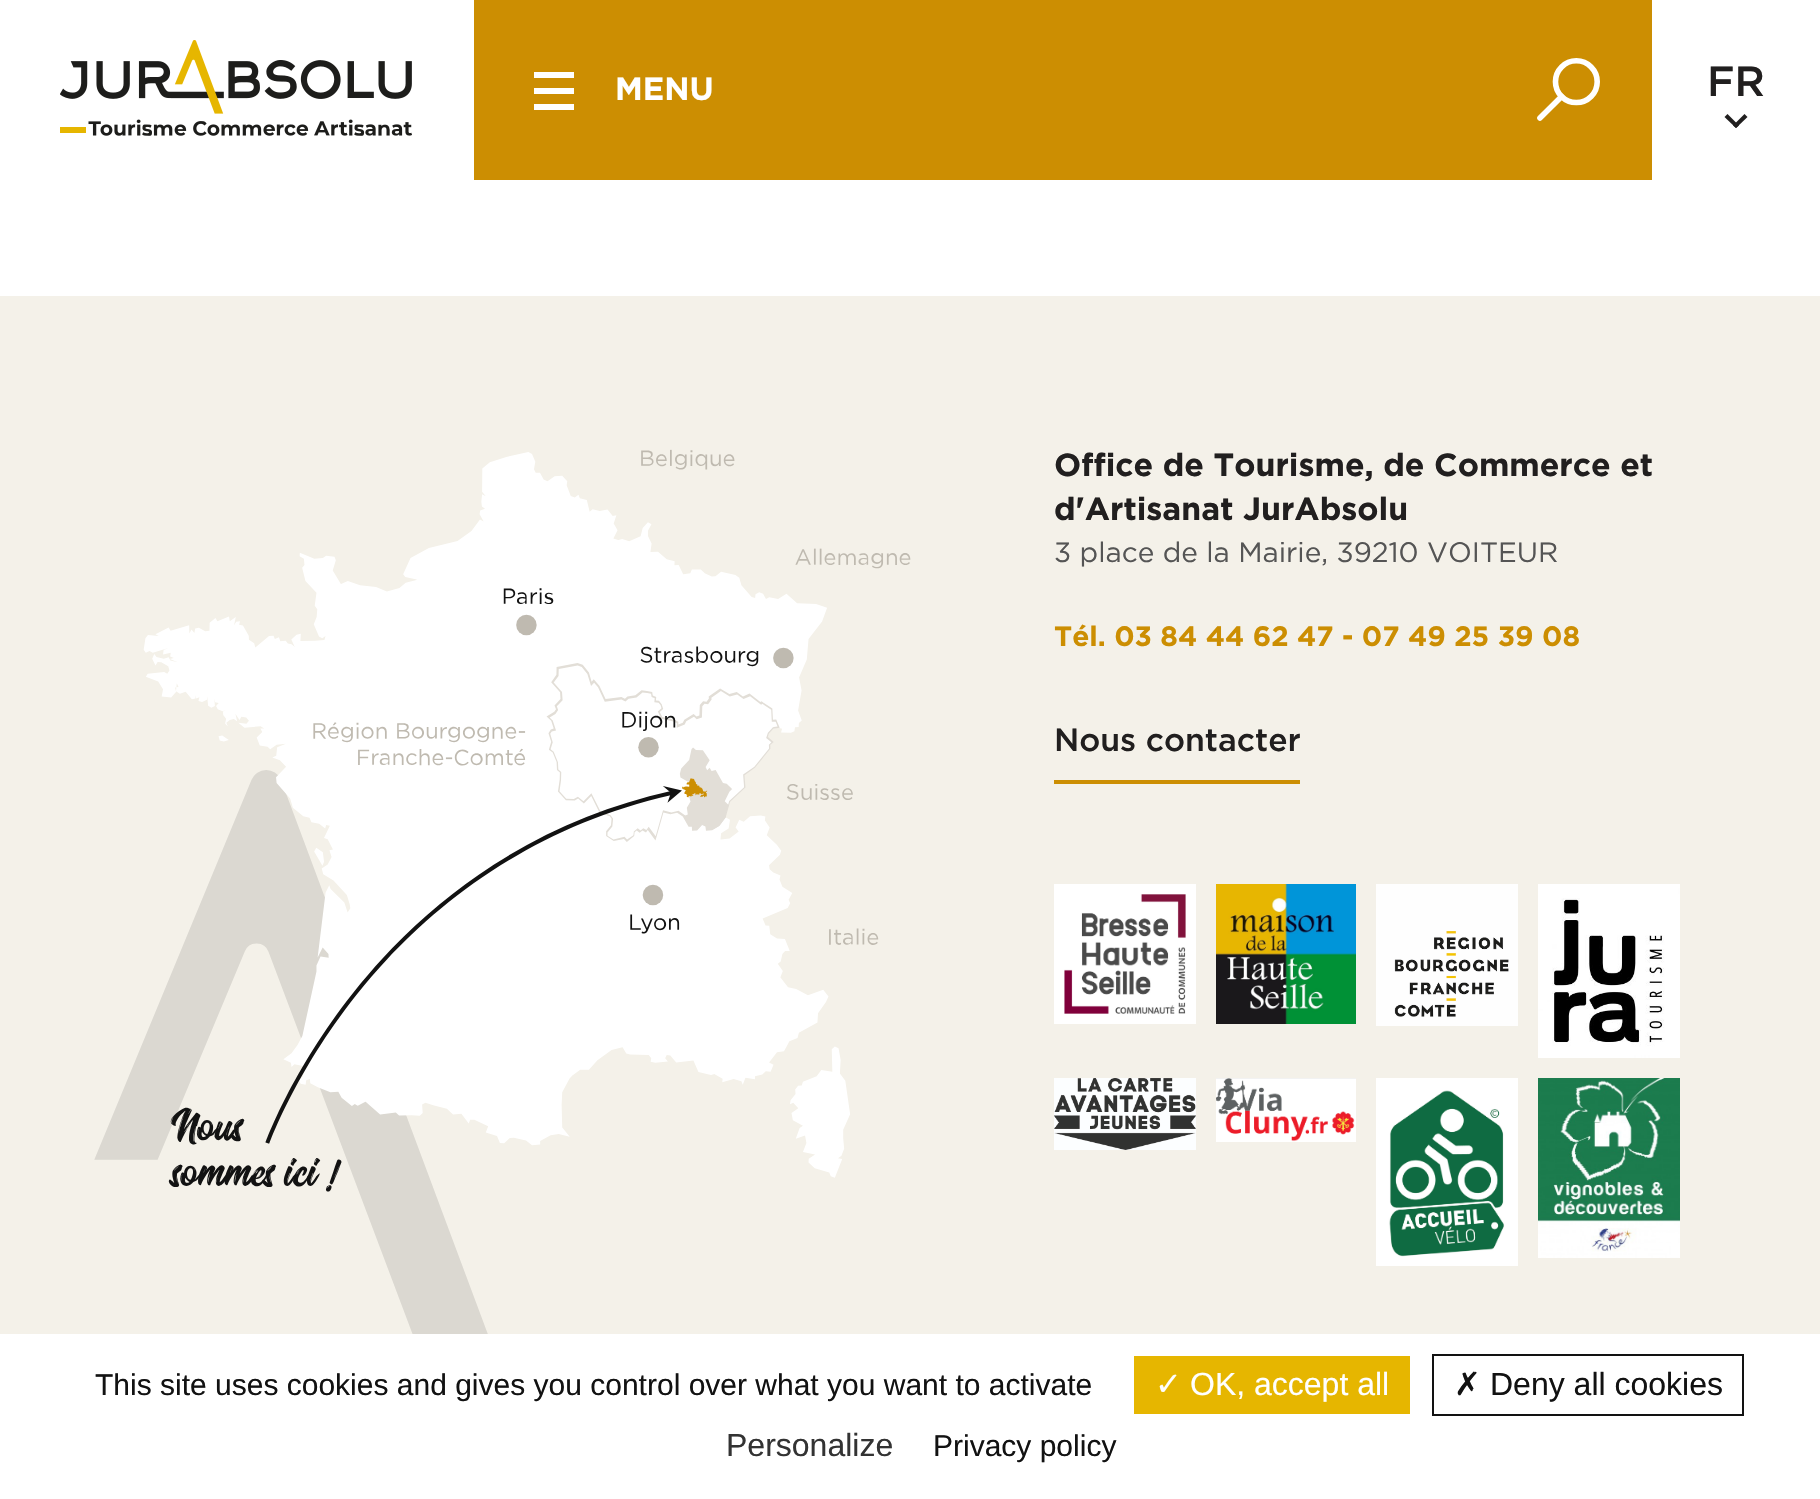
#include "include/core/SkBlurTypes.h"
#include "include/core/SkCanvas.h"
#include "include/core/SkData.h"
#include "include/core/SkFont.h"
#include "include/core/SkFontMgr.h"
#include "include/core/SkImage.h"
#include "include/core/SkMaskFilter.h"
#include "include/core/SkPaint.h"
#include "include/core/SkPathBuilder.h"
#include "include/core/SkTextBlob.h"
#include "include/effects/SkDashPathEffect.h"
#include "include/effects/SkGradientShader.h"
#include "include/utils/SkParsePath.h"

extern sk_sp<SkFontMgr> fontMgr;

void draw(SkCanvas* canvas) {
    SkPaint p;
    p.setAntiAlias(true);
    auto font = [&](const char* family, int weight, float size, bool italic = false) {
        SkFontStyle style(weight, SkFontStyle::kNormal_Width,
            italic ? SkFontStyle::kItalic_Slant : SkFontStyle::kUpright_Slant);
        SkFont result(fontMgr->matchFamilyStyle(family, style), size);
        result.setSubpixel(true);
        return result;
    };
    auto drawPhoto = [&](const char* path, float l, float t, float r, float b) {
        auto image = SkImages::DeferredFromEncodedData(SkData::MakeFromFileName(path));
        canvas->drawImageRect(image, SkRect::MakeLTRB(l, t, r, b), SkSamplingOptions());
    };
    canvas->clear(0xFFFFFFFF);
    p.setColor(0xFFCC8E02);
    canvas->drawRect(SkRect::MakeLTRB(474, 0, 1652, 180), p);
    drawPhoto("media/1.png", 60, 40, 412, 136);
    p.setColor(0xFFFFFFFF);
    canvas->drawRect(SkRect::MakeLTRB(534, 72, 574, 78), p);
    canvas->drawRect(SkRect::MakeLTRB(534, 88, 574, 94), p);
    auto font1 = font("Gotham", 700, 32);
    canvas->drawString("MENU", 615, 100, font1, p);
    canvas->drawRect(SkRect::MakeLTRB(534, 104, 574, 110), p);
    drawPhoto("media/2.png", 1537, 58, 1600, 121);
    auto font2 = font("Gotham", 500, 42);
    p.setColor(0xFF211F1F);
    canvas->drawString("FR", 1707, 96, font2, p);
    canvas->drawPath(SkPathBuilder().moveTo(1744.5f, 114).lineTo(1747.5f, 117).lineTo(1736, 128).lineTo(1733, 125.5f).close().detach(), p);
    canvas->drawPath(SkPathBuilder().moveTo(1727.5f, 114).lineTo(1739, 125.5f).lineTo(1736, 128).lineTo(1724.5f, 117).close().detach(), p);
    p.setColor(0xFFF4F1E9);
    canvas->drawRect(SkRect::MakeLTRB(0, 296, 1820, 1334), p);
    drawPhoto("media/4.png", 94, 770, 488, 1334);
    drawPhoto("media/3.png", 143, 449, 911, 1192);
    p.setColor(0xFF211F1F);
    canvas->drawString("Office de Tourisme, de Commerce et", 1054, 476, font1, p);
    canvas->drawString("d'Artisanat JurAbsolu", 1054, 520, font1, p);
    auto font3 = font("Gotham", 400, 28);
    p.setColor(0xFF555555);
    canvas->drawString("3 place de la Mairie, 39210 VOITEUR", 1054, 562, font3, p);
    auto font4 = font("Gotham", 700, 28);
    p.setColor(0xFFCC8E02);
    canvas->drawString("Tél. 03 84 44 62 47 - 07 49 25 39 08", 1054, 646, font4, p);
    canvas->drawRect(SkRect::MakeLTRB(1054, 780, 1300, 784), p);
    auto font5 = font("Gotham", 500, 32);
    p.setColor(0xFF211F1F);
    canvas->drawString("Nous contacter", 1054, 751, font5, p);
    drawPhoto("media/5.png", 1054, 884, 1196, 1024);
    drawPhoto("media/6.png", 1216, 884, 1356, 1024);
    drawPhoto("media/7.png", 1376, 884, 1518, 1026);
    drawPhoto("media/8.png", 1538, 884, 1680, 1058);
    drawPhoto("media/9.png", 1054, 1078, 1196, 1150);
    drawPhoto("media/10.png", 1216, 1078, 1356, 1142);
    drawPhoto("media/11.png", 1376, 1078, 1518, 1266);
    drawPhoto("media/12.png", 1538, 1078, 1680, 1258);
    auto font6 = font("Liberation Sans", 400, 30);
    p.setColor(0xFF121212);
    canvas->drawString("This site uses cookies and gives you control over what you want to activate", 95, 1395, font6, p);
    p.setColor(0xFFE6B600);
    canvas->drawRect(SkRect::MakeLTRB(1134, 1356, 1410, 1414), p);
    auto font7 = font("DejaVu Sans", 400, 32);
    p.setColor(0xFFFFFFFF);
    canvas->drawString("✓", 1155, 1395, font7, p);
    auto font8 = font("Liberation Sans", 400, 32);
    canvas->drawString("OK, accept all", 1190, 1395, font8, p);
    p.setStyle(SkPaint::kStroke_Style);
    p.setStrokeWidth(2);
    p.setColor(0xFF121212);
    canvas->drawRect(SkRect::MakeLTRB(1433, 1355, 1743, 1415), p);
    p.setStyle(SkPaint::kFill_Style);
    canvas->drawString("✗", 1454, 1395, font7, p);
    canvas->drawString("Deny all cookies", 1490, 1395, font8, p);
    p.setColor(0xFF333333);
    canvas->drawString("Personalize", 726, 1456, font8, p);
    p.setColor(0xFF121212);
    canvas->drawString("Privacy policy", 933, 1456, font6, p);
}
